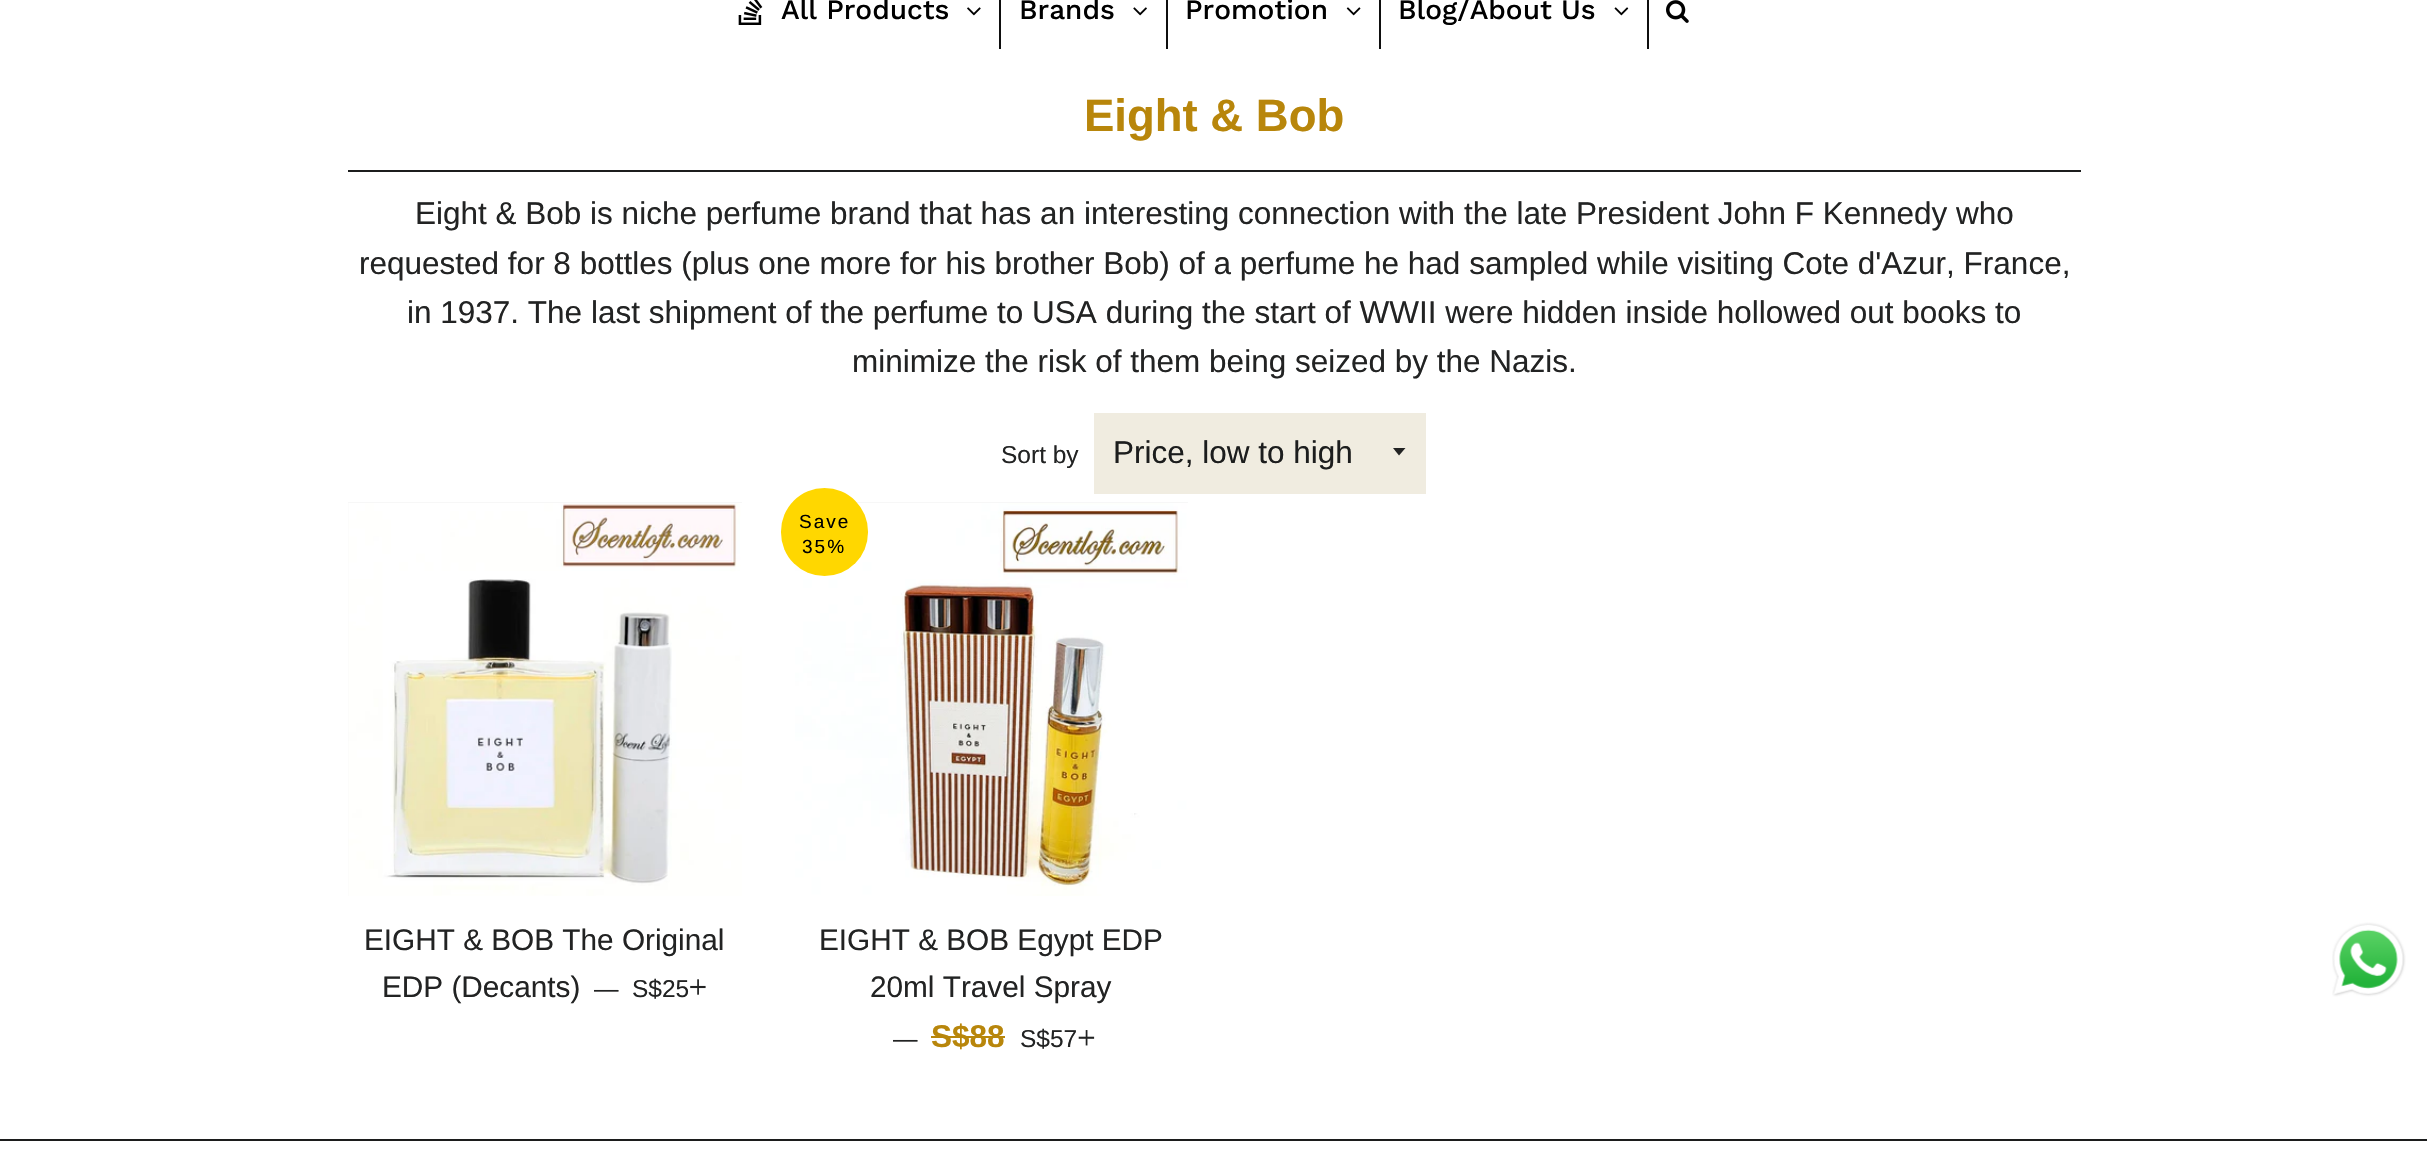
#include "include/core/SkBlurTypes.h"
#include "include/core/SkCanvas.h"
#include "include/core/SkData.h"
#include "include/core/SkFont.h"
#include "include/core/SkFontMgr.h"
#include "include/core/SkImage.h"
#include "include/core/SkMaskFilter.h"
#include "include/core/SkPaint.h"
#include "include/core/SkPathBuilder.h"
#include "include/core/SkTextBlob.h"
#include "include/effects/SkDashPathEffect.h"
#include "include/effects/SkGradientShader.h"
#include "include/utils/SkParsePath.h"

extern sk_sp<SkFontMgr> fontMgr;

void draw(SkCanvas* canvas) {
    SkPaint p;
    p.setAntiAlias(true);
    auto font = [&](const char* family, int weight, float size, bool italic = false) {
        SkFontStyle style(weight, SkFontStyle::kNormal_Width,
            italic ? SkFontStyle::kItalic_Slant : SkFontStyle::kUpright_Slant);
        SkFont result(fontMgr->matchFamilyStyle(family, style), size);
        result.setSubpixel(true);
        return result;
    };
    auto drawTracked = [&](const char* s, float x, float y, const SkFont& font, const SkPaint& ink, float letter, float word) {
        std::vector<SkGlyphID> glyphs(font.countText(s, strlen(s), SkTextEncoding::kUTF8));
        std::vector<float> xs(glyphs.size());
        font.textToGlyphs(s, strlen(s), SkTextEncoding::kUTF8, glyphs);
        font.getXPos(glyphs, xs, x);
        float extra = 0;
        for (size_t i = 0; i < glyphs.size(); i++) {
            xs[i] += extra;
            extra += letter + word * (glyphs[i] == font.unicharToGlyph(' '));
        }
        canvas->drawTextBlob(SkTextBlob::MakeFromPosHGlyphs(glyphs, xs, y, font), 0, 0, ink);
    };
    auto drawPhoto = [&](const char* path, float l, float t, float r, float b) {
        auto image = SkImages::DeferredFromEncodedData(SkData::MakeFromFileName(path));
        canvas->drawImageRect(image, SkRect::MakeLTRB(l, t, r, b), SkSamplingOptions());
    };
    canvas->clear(0xFFFFFFFF);
    drawPhoto("media/1.png", 738, 0, 763, 25);
    auto font1 = font("Work Sans", 500, 28);
    p.setColor(0xFF000000);
    canvas->drawString("All Products", 781, 19, font1, p);
    drawPhoto("media/2.png", 967, 7, 981, 16);
    p.setColor(0xFF0F0F0F);
    canvas->drawRect(SkRect::MakeLTRB(999, 0, 1001, 49), p);
    p.setColor(0xFF000000);
    canvas->drawString("Brands", 1019, 19, font1, p);
    drawPhoto("media/3.png", 1133, 7, 1147, 16);
    p.setColor(0xFF0F0F0F);
    canvas->drawRect(SkRect::MakeLTRB(1166, 0, 1168, 49), p);
    p.setColor(0xFF000000);
    canvas->drawString("Promotion", 1185, 19, font1, p);
    drawPhoto("media/4.png", 1346, 7, 1361, 16);
    p.setColor(0xFF0F0F0F);
    canvas->drawRect(SkRect::MakeLTRB(1379, 0, 1381, 49), p);
    p.setColor(0xFF000000);
    canvas->drawString("Blog/About Us", 1398, 19, font1, p);
    drawPhoto("media/5.png", 1614, 7, 1629, 16);
    p.setColor(0xFF0F0F0F);
    canvas->drawRect(SkRect::MakeLTRB(1647, 0, 1649, 49), p);
    drawPhoto("media/6.png", 1666, 0, 1689, 23);
    auto font2 = font("Liberation Sans", 700, 45.5f);
    p.setColor(0xFFB8860B);
    canvas->drawString("Eight & Bob", 1084, 131, font2, p);
    p.setColor(0xFF1C1D1D);
    canvas->drawRect(SkRect::MakeLTRB(348, 170, 2081, 172), p);
    auto font3 = font("Liberation Sans", 400, 31.5f);
    p.setColor(0xFF222323);
    {
        const struct { const char* s; float x, y; } items[] = {
            {"Eight & Bob is niche perfume brand that has an interesting connection with the late President John F Kennedy who", 415, 224},
            {"requested for 8 bottles (plus one more for his brother Bob) of a perfume he had sampled while visiting Cote d'Azur, France,", 359, 274},
            {"in 1937. The last shipment of the perfume to USA during the start of WWII were hidden inside hollowed out books to", 407, 323},
            {"minimize the risk of them being seized by the Nazis.", 852, 372},
        };
        for (auto [s, x, y] : items) {
            canvas->drawString(s, x, y, font3, p);
        }
    }
    auto font4 = font("Liberation Sans", 400, 24.5f);
    canvas->drawString("Sort by", 1001, 463, font4, p);
    p.setColor(0xFFF0ECE0);
    canvas->drawRect(SkRect::MakeLTRB(1094, 413, 1426, 494), p);
    p.setColor(0xFF222323);
    canvas->drawPath(SkPathBuilder().moveTo(1393, 448).lineTo(1399, 455.5f).lineTo(1405.5f, 448).close().detach(), p);
    p.setColor(0xFF1C1D1D);
    canvas->drawString("Price, low to high", 1113, 463, font3, p);
    p.setColor(0xFFF7F7F7);
    canvas->drawRect(SkRect::MakeLTRB(348, 502, 742, 896), p);
    drawPhoto("media/7.png", 348, 503, 742, 896);
    auto font5 = font("Liberation Sans", 400, 29.75f);
    p.setColor(0xFF222323);
    canvas->drawString("EIGHT & BOB The Original", 364, 950, font5, p);
    canvas->drawString("EDP (Decants)", 382, 997, font5, p);
    canvas->drawString("—", 594, 997, font4, p);
    canvas->drawString("S$25", 632, 997, font4, p);
    drawPhoto("media/8.png", 690, 979, 706, 995);
    p.setColor(0xFFF7F7F7);
    canvas->drawRect(SkRect::MakeLTRB(856, 502, 1188, 503), p);
    drawPhoto("media/9.png", 795, 503, 1188, 896);
    p.setColor(0xFFFFD700);
    canvas->drawRoundRect(SkRect::MakeLTRB(781, 488, 868, 576), 43.5f, 43.5f, p);
    auto font6 = font("Liberation Sans", 400, 19);
    p.setColor(0xFF000000);
    drawTracked("Save", 799, 528, font6, p, 2, 0);
    drawTracked("35%", 802, 553, font6, p, 2, 0);
    p.setColor(0xFF222323);
    canvas->drawString("EIGHT & BOB Egypt EDP", 819, 950, font5, p);
    canvas->drawString("20ml Travel Spray", 870, 997, font5, p);
    canvas->drawString("—", 893, 1047, font4, p);
    auto font7 = font("Liberation Sans", 700, 31.5f);
    p.setColor(0xFFB8860B);
    canvas->drawString("S$88", 931, 1047, font7, p);
    canvas->drawRect(SkRect::MakeLTRB(931, 1036, 1005, 1038), p);
    p.setColor(0xFF222323);
    canvas->drawString("S$57", 1020, 1047, font4, p);
    drawPhoto("media/10.png", 1078, 1030, 1095, 1046);
    p.setColor(0xFF1C1D1D);
    canvas->drawRect(SkRect::MakeLTRB(0, 1139, 2427, 1141), p);
    drawPhoto("media/11.png", 2332, 922, 2406, 997);
}
